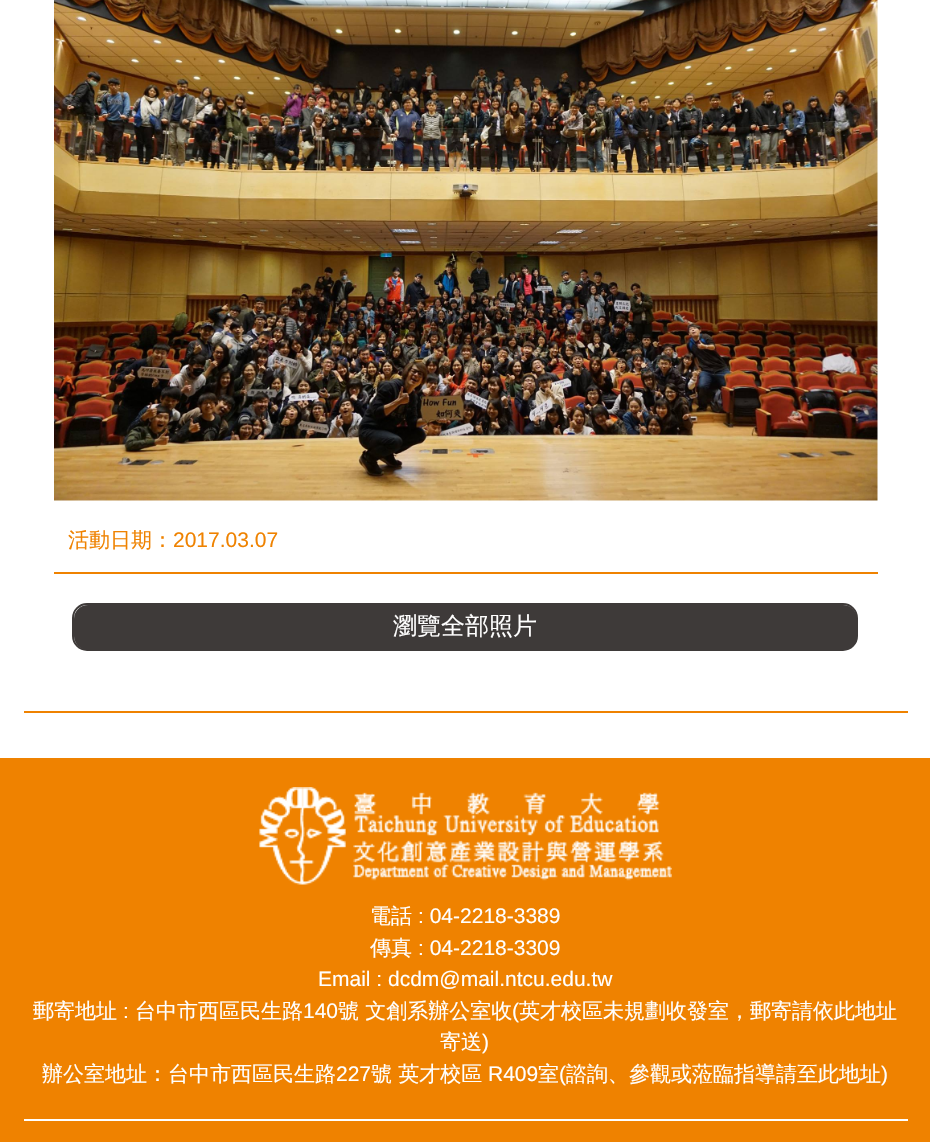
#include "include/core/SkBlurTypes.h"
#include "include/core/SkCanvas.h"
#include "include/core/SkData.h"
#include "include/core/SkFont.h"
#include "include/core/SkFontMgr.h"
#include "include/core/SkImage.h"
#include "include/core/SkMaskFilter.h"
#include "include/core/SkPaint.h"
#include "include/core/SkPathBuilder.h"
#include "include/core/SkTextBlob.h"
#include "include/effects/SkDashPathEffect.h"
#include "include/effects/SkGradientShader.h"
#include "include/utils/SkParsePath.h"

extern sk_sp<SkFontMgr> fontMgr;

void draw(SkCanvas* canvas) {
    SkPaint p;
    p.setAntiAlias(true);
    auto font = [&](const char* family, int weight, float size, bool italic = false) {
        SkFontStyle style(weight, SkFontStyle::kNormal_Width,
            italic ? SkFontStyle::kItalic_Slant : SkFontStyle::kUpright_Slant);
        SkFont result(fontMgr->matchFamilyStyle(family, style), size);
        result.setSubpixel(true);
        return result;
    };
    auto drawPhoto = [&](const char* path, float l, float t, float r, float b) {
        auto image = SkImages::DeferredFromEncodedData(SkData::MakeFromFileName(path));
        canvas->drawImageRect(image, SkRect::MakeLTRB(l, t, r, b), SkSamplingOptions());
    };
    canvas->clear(0xFFFFFFFF);
    p.setColor(0xFFEF8200);
    canvas->drawRect(SkRect::MakeLTRB(24, 711, 908, 713), p);
    drawPhoto("media/1.png", 54, 0, 878, 501);
    canvas->drawRect(SkRect::MakeLTRB(54, 572, 878, 574), p);
    auto font1 = font("WenQuanYi Zen Hei", 500, 21);
    canvas->drawString("活動日期：", 68, 547, font1, p);
    auto font2 = font("Liberation Sans", 400, 21);
    canvas->drawString("2017.03.07", 173, 547, font2, p);
    p.setStyle(SkPaint::kStroke_Style);
    p.setStrokeWidth(2);
    p.setColor(0xFF3E3A39);
    canvas->drawRoundRect(SkRect::MakeLTRB(73, 604, 857, 650), 14, 14, p);
    p.setStyle(SkPaint::kFill_Style);
    canvas->drawRoundRect(SkRect::MakeLTRB(74, 605, 857, 650), 14, 14, p);
    auto font3 = font("WenQuanYi Zen Hei", 500, 24);
    p.setColor(0xFFFFFFFF);
    canvas->drawString("瀏覽全部照片", 393, 634, font3, p);
    p.setColor(0xFFEF8200);
    canvas->drawRect(SkRect::MakeLTRB(0, 758, 930, 1142), p);
    drawPhoto("media/2.png", 259, 787, 672, 885);
    p.setColor(0xFFFFFFFF);
    canvas->drawString("電話", 370, 923, font1, p);
    canvas->drawString(": 04-2218-3389", 418, 923, font2, p);
    canvas->drawString("傳真", 370, 955, font1, p);
    canvas->drawString(": 04-2218-3309", 418, 955, font2, p);
    canvas->drawString("Email : dcdm@mail.ntcu.edu.tw", 318, 986, font2, p);
    canvas->drawString("郵寄地址", 33, 1018, font1, p);
    canvas->drawString(":", 123, 1018, font2, p);
    canvas->drawString("台中市西區民生路", 135, 1018, font1, p);
    canvas->drawString("140", 303, 1018, font2, p);
    canvas->drawString("號 文創系辦公室收", 338, 1018, font1, p);
    canvas->drawString("(", 512, 1018, font2, p);
    canvas->drawString("英才校區未規劃收發室，郵寄請依此地址", 519, 1018, font1, p);
    canvas->drawString("寄送", 440, 1049, font1, p);
    canvas->drawString(")", 482, 1049, font2, p);
    canvas->drawString("辦公室地址：台中市西區民生路", 42, 1081, font1, p);
    canvas->drawString("227", 336, 1081, font2, p);
    canvas->drawString("號 英才校區", 371, 1081, font1, p);
    canvas->drawString("R409", 488, 1081, font2, p);
    canvas->drawString("室", 538, 1081, font1, p);
    canvas->drawString("(", 559, 1081, font2, p);
    canvas->drawString("諮詢、參觀或蒞臨指導請至此地址", 566, 1081, font1, p);
    canvas->drawString(")", 881, 1081, font2, p);
    canvas->drawRect(SkRect::MakeLTRB(24, 1119, 908, 1121), p);
}
